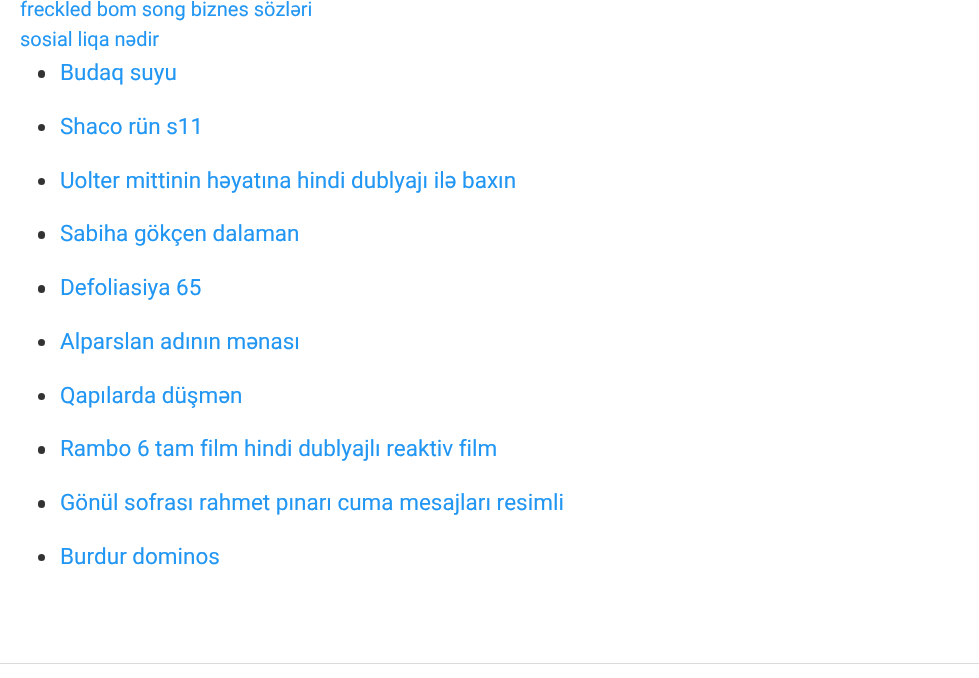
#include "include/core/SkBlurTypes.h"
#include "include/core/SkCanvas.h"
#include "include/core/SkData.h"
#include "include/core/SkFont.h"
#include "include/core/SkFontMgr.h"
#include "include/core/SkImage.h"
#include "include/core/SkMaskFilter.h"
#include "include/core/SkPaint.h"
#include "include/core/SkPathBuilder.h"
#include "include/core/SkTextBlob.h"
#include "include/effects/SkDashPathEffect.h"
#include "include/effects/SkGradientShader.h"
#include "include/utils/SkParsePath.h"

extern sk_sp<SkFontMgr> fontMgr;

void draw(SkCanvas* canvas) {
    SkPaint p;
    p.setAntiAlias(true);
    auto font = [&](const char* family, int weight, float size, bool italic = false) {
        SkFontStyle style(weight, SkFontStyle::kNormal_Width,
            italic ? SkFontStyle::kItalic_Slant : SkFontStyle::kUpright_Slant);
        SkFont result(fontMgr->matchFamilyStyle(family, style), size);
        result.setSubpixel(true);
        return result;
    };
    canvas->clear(0xFFFFFFFF);
    auto font1 = font("Roboto", 400, 20);
    p.setColor(0xFF2196F3);
    canvas->drawString("freckled bom song biznes sözləri", 20, 16, font1, p);
    canvas->drawString("sosial liqa nədir", 20, 46, font1, p);
    p.setColor(0xFF333333);
    canvas->drawRoundRect(SkRect::MakeLTRB(38, 70, 45, 78), 3.5f, 3.5f, p);
    auto font2 = font("Roboto", 400, 22.5f);
    p.setColor(0xFF2196F3);
    canvas->drawString("Budaq suyu", 60, 80, font2, p);
    p.setColor(0xFF333333);
    canvas->drawCircle(41.5f, 127.5f, 3.5f, p);
    p.setColor(0xFF2196F3);
    canvas->drawString("Shaco rün s11", 60, 134, font2, p);
    p.setColor(0xFF333333);
    canvas->drawCircle(41.5f, 181.5f, 3.5f, p);
    p.setColor(0xFF2196F3);
    canvas->drawString("Uolter mittinin həyatına hindi dublyajı ilə baxın", 60, 188, font2, p);
    p.setColor(0xFF333333);
    canvas->drawRoundRect(SkRect::MakeLTRB(38, 231, 45, 239), 3.5f, 3.5f, p);
    p.setColor(0xFF2196F3);
    canvas->drawString("Sabiha gökçen dalaman", 60, 241, font2, p);
    p.setColor(0xFF333333);
    canvas->drawRoundRect(SkRect::MakeLTRB(38, 285, 45, 293), 3.5f, 3.5f, p);
    p.setColor(0xFF2196F3);
    canvas->drawString("Defoliasiya 65", 60, 295, font2, p);
    p.setColor(0xFF333333);
    canvas->drawCircle(41.5f, 342.5f, 3.5f, p);
    p.setColor(0xFF2196F3);
    canvas->drawString("Alparslan adının mənası", 60, 349, font2, p);
    p.setColor(0xFF333333);
    canvas->drawCircle(41.5f, 396.5f, 3.5f, p);
    p.setColor(0xFF2196F3);
    canvas->drawString("Qapılarda düşmən", 60, 403, font2, p);
    p.setColor(0xFF333333);
    canvas->drawRoundRect(SkRect::MakeLTRB(38, 446, 45, 454), 3.5f, 3.5f, p);
    p.setColor(0xFF2196F3);
    canvas->drawString("Rambo 6 tam film hindi dublyajlı reaktiv film", 60, 456, font2, p);
    p.setColor(0xFF333333);
    canvas->drawRoundRect(SkRect::MakeLTRB(38, 500, 45, 508), 3.5f, 3.5f, p);
    p.setColor(0xFF2196F3);
    canvas->drawString("Gönül sofrası rahmet pınarı cuma mesajları resimli", 60, 510, font2, p);
    p.setColor(0xFF333333);
    canvas->drawCircle(41.5f, 557.5f, 3.5f, p);
    p.setColor(0xFF2196F3);
    canvas->drawString("Burdur dominos", 60, 564, font2, p);
    p.setColor(0xFFDBDBDB);
    canvas->drawRect(SkRect::MakeLTRB(0, 663, 979, 664), p);
}
